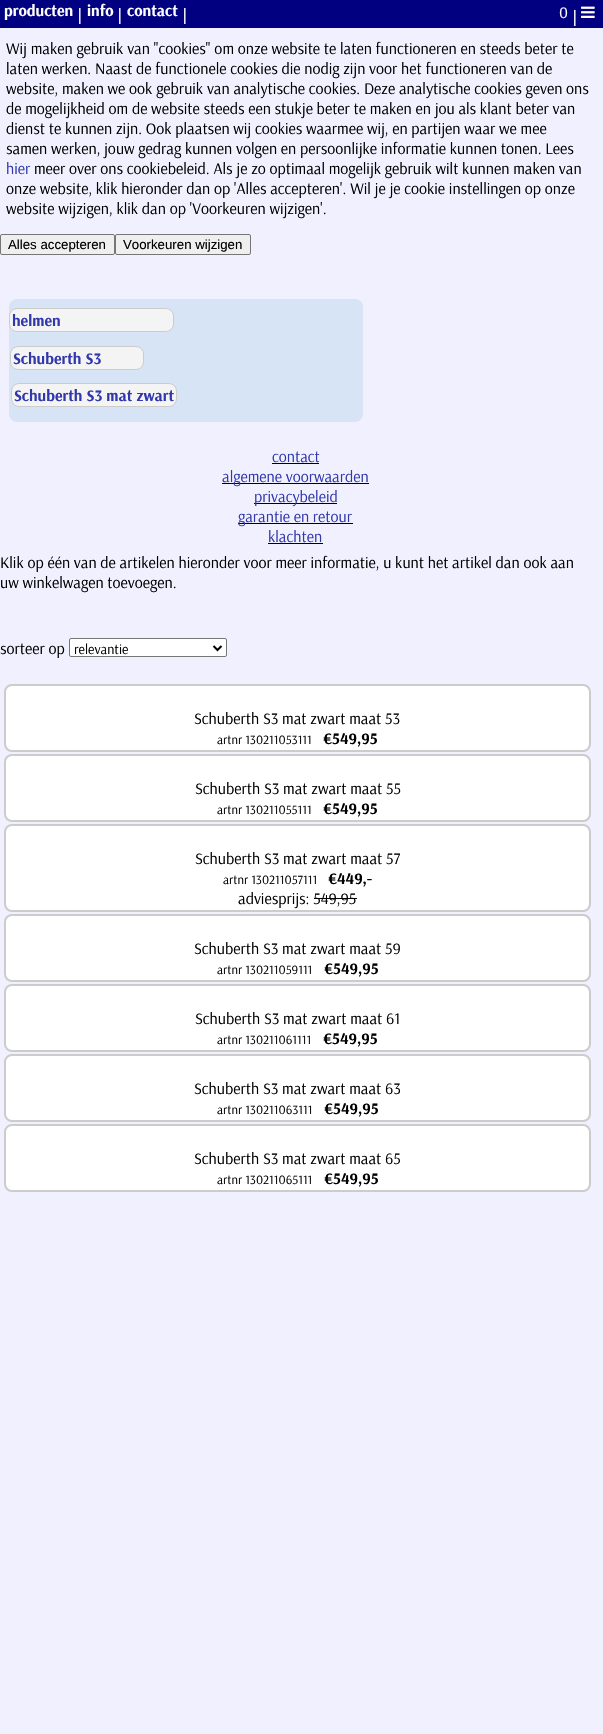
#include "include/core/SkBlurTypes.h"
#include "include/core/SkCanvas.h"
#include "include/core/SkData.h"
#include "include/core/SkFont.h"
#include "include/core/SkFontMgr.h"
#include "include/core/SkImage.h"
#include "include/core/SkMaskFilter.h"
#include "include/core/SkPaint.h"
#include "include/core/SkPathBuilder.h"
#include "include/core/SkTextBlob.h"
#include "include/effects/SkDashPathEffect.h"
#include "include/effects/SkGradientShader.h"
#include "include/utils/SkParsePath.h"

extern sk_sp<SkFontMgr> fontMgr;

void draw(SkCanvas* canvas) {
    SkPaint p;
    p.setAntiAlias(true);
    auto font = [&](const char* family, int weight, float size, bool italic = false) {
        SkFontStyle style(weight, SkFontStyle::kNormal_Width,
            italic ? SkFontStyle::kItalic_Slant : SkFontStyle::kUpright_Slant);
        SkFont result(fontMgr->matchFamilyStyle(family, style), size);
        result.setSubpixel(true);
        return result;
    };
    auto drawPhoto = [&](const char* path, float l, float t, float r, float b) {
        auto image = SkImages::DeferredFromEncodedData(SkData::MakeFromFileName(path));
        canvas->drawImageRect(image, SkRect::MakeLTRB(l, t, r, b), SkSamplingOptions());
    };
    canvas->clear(0xFFF0F0FF);
    p.setColor(0xFF000080);
    canvas->drawRect(SkRect::MakeLTRB(0, 0, 603, 28), p);
    auto font1 = font("Arsenal", 700, 16);
    p.setColor(0xFFFFFFFF);
    {
        const struct { const char* s; float x, y; } items[] = {
            {"producten", 4, 16},
            {"|", 77, 20},
            {"info", 87, 16},
            {"|", 117, 20},
            {"contact", 127, 16},
            {"|", 182, 20},
        };
        for (auto [s, x, y] : items) {
            canvas->drawString(s, x, y, font1, p);
        }
    }
    auto font2 = font("Arsenal", 400, 16);
    canvas->drawString("0", 559, 18, font2, p);
    canvas->drawString("|", 572, 22, font1, p);
    drawPhoto("media/1.png", 581, 6, 595, 18);
    p.setColor(0xFFD7E4F6);
    canvas->drawRoundRect(SkRect::MakeLTRB(9, 299, 363, 422), 8, 8, p);
    p.setColor(0xFFF4F4F4);
    canvas->drawRoundRect(SkRect::MakeLTRB(9.5f, 308.5f, 173.5f, 331.5f), 7.5f, 7.5f, p);
    p.setStyle(SkPaint::kStroke_Style);
    p.setStrokeWidth(1);
    p.setColor(0xFFCCCCCC);
    canvas->drawRoundRect(SkRect::MakeLTRB(9.5f, 308.5f, 173.5f, 331.5f), 7.5f, 7.5f, p);
    p.setStyle(SkPaint::kFill_Style);
    p.setColor(0xFF3038AB);
    canvas->drawString("helmen", 12, 326, font1, p);
    p.setColor(0xFFF4F4F4);
    canvas->drawRoundRect(SkRect::MakeLTRB(10.5f, 346.5f, 143.5f, 369.5f), 7.5f, 7.5f, p);
    p.setStyle(SkPaint::kStroke_Style);
    p.setColor(0xFFCCCCCC);
    canvas->drawRoundRect(SkRect::MakeLTRB(10.5f, 346.5f, 143.5f, 369.5f), 7.5f, 7.5f, p);
    p.setStyle(SkPaint::kFill_Style);
    p.setColor(0xFF3038AB);
    canvas->drawString("Schuberth S3", 13, 364, font1, p);
    p.setColor(0xFFF4F4F4);
    canvas->drawRoundRect(SkRect::MakeLTRB(11.5f, 383.5f, 176.5f, 406.5f), 7.5f, 7.5f, p);
    p.setStyle(SkPaint::kStroke_Style);
    p.setColor(0xFFCCCCCC);
    canvas->drawRoundRect(SkRect::MakeLTRB(11.5f, 383.5f, 176.5f, 406.5f), 7.5f, 7.5f, p);
    p.setStyle(SkPaint::kFill_Style);
    p.setColor(0xFF3038AB);
    canvas->drawString("Schuberth S3 mat zwart", 14, 401, font1, p);
    canvas->drawString("contact", 272, 462, font2, p);
    p.setColor(0xFF000000);
    canvas->drawRect(SkRect::MakeLTRB(272, 463, 319, 464), p);
    canvas->drawRect(SkRect::MakeLTRB(222, 483, 369, 484), p);
    p.setColor(0xFF3038AB);
    canvas->drawString("algemene voorwaarden", 222, 482, font2, p);
    p.setColor(0xFF000000);
    canvas->drawRect(SkRect::MakeLTRB(254, 503, 337, 504), p);
    p.setColor(0xFF3038AB);
    canvas->drawString("privacybeleid", 254, 502, font2, p);
    p.setColor(0xFF000000);
    canvas->drawRect(SkRect::MakeLTRB(238, 523, 353, 524), p);
    p.setColor(0xFF3038AB);
    canvas->drawString("garantie en retour", 238, 522, font2, p);
    canvas->drawString("klachten", 268, 542, font2, p);
    p.setColor(0xFF000000);
    canvas->drawRect(SkRect::MakeLTRB(268, 543, 323, 544), p);
    {
        const struct { const char* s; float x, y; } items[] = {
            {"Klik op één van de artikelen hieronder voor meer informatie, u kunt het artikel dan ook aan", 0, 568},
            {"uw winkelwagen toevoegen.", 0, 588},
            {"sorteer op", 0, 654},
        };
        for (auto [s, x, y] : items) {
            canvas->drawString(s, x, y, font2, p);
        }
    }
    p.setColor(0xFFFFFFFF);
    canvas->drawRoundRect(SkRect::MakeLTRB(69.5f, 638.5f, 226.5f, 656.5f), 1.5f, 1.5f, p);
    p.setStyle(SkPaint::kStroke_Style);
    p.setColor(0xFF767676);
    canvas->drawRoundRect(SkRect::MakeLTRB(69.5f, 638.5f, 226.5f, 656.5f), 1.5f, 1.5f, p);
    p.setStrokeWidth(2);
    p.setColor(0xFF000000);
    canvas->drawPath(SkPathBuilder().moveTo(213.5f, 646).lineTo(217.5f, 650).lineTo(221.5f, 646).detach(), p);
    auto font3 = font("Arsenal", 400, 14);
    p.setStyle(SkPaint::kFill_Style);
    canvas->drawString("relevantie", 74, 654, font3, p);
    p.setColor(0xFFFFFFFF);
    canvas->drawRoundRect(SkRect::MakeLTRB(5, 685, 590, 751), 7, 7, p);
    p.setStyle(SkPaint::kStroke_Style);
    p.setColor(0xFFCCCCCC);
    canvas->drawRoundRect(SkRect::MakeLTRB(5, 685, 590, 751), 7, 7, p);
    p.setStyle(SkPaint::kFill_Style);
    p.setColor(0xFF000000);
    canvas->drawString("Schuberth S3 mat zwart maat 53", 194, 724, font2, p);
    auto font4 = font("Arsenal", 400, 12.75f);
    canvas->drawString("artnr 130211053111", 217, 744, font4, p);
    canvas->drawString("€549,95", 323, 744, font1, p);
    p.setColor(0xFFFFFFFF);
    canvas->drawRoundRect(SkRect::MakeLTRB(5, 755, 590, 821), 7, 7, p);
    p.setStyle(SkPaint::kStroke_Style);
    p.setColor(0xFFCCCCCC);
    canvas->drawRoundRect(SkRect::MakeLTRB(5, 755, 590, 821), 7, 7, p);
    p.setStyle(SkPaint::kFill_Style);
    p.setColor(0xFF000000);
    canvas->drawString("Schuberth S3 mat zwart maat 55", 195, 794, font2, p);
    canvas->drawString("artnr 130211055111", 217, 814, font4, p);
    canvas->drawString("€549,95", 323, 814, font1, p);
    p.setColor(0xFFFFFFFF);
    canvas->drawRoundRect(SkRect::MakeLTRB(5, 825, 590, 911), 7, 7, p);
    p.setStyle(SkPaint::kStroke_Style);
    p.setColor(0xFFCCCCCC);
    canvas->drawRoundRect(SkRect::MakeLTRB(5, 825, 590, 911), 7, 7, p);
    p.setStyle(SkPaint::kFill_Style);
    p.setColor(0xFF000000);
    canvas->drawString("Schuberth S3 mat zwart maat 57", 195, 864, font2, p);
    canvas->drawString("artnr 130211057111", 223, 884, font4, p);
    canvas->drawString("€449,-", 328, 884, font1, p);
    canvas->drawString("adviesprijs: 549,95", 238, 904, font2, p);
    canvas->drawRect(SkRect::MakeLTRB(314, 898, 357, 899), p);
    p.setColor(0xFFFFFFFF);
    canvas->drawRoundRect(SkRect::MakeLTRB(5, 915, 590, 981), 7, 7, p);
    p.setStyle(SkPaint::kStroke_Style);
    p.setColor(0xFFCCCCCC);
    canvas->drawRoundRect(SkRect::MakeLTRB(5, 915, 590, 981), 7, 7, p);
    p.setStyle(SkPaint::kFill_Style);
    p.setColor(0xFF000000);
    canvas->drawString("Schuberth S3 mat zwart maat 59", 194, 954, font2, p);
    canvas->drawString("artnr 130211059111", 217, 974, font4, p);
    canvas->drawString("€549,95", 324, 974, font1, p);
    p.setColor(0xFFFFFFFF);
    canvas->drawRoundRect(SkRect::MakeLTRB(5, 985, 590, 1051), 7, 7, p);
    p.setStyle(SkPaint::kStroke_Style);
    p.setColor(0xFFCCCCCC);
    canvas->drawRoundRect(SkRect::MakeLTRB(5, 985, 590, 1051), 7, 7, p);
    p.setStyle(SkPaint::kFill_Style);
    p.setColor(0xFF000000);
    canvas->drawString("Schuberth S3 mat zwart maat 61", 195, 1024, font2, p);
    canvas->drawString("artnr 130211061111", 217, 1044, font4, p);
    canvas->drawString("€549,95", 323, 1044, font1, p);
    p.setColor(0xFFFFFFFF);
    canvas->drawRoundRect(SkRect::MakeLTRB(5, 1055, 590, 1121), 7, 7, p);
    p.setStyle(SkPaint::kStroke_Style);
    p.setColor(0xFFCCCCCC);
    canvas->drawRoundRect(SkRect::MakeLTRB(5, 1055, 590, 1121), 7, 7, p);
    p.setStyle(SkPaint::kFill_Style);
    p.setColor(0xFF000000);
    canvas->drawString("Schuberth S3 mat zwart maat 63", 194, 1094, font2, p);
    canvas->drawString("artnr 130211063111", 217, 1114, font4, p);
    canvas->drawString("€549,95", 324, 1114, font1, p);
    p.setColor(0xFFFFFFFF);
    canvas->drawRoundRect(SkRect::MakeLTRB(5, 1125, 590, 1191), 7, 7, p);
    p.setStyle(SkPaint::kStroke_Style);
    p.setColor(0xFFCCCCCC);
    canvas->drawRoundRect(SkRect::MakeLTRB(5, 1125, 590, 1191), 7, 7, p);
    p.setStyle(SkPaint::kFill_Style);
    p.setColor(0xFF000000);
    canvas->drawString("Schuberth S3 mat zwart maat 65", 194, 1164, font2, p);
    canvas->drawString("artnr 130211065111", 217, 1184, font4, p);
    canvas->drawString("€549,95", 324, 1184, font1, p);
    {
        const struct { const char* s; float x, y; } items[] = {
            {"Wij maken gebruik van \"cookies\" om onze website te laten functioneren en steeds beter te", 6, 54},
            {"laten werken. Naast de functionele cookies die nodig zijn voor het functioneren van de", 6, 74},
            {"website, maken we ook gebruik van analytische cookies. Deze analytische cookies geven ons", 6, 94},
            {"de mogelijkheid om de website steeds een stukje beter te maken en jou als klant beter van", 6, 114},
            {"dienst te kunnen zijn. Ook plaatsen wij cookies waarmee wij, en partijen waar we mee", 6, 134},
            {"samen werken, jouw gedrag kunnen volgen en persoonlijke informatie kunnen tonen. Lees", 6, 154},
        };
        for (auto [s, x, y] : items) {
            canvas->drawString(s, x, y, font2, p);
        }
    }
    p.setColor(0xFF3038AB);
    canvas->drawString("hier", 6, 174, font2, p);
    p.setColor(0xFF000000);
    {
        const struct { const char* s; float x, y; } items[] = {
            {"meer over ons cookiebeleid. Als je zo optimaal mogelijk gebruik wilt kunnen maken van", 34, 174},
            {"onze website, klik hieronder dan op 'Alles accepteren'. Wil je je cookie instellingen op onze", 6, 194},
            {"website wijzigen, klik dan op 'Voorkeuren wijzigen'.", 6, 214},
        };
        for (auto [s, x, y] : items) {
            canvas->drawString(s, x, y, font2, p);
        }
    }
    p.setColor(0xFFEFEFEF);
    canvas->drawRoundRect(SkRect::MakeLTRB(0.5f, 234.5f, 114.5f, 254.5f), 1.5f, 1.5f, p);
    p.setStyle(SkPaint::kStroke_Style);
    p.setStrokeWidth(1);
    p.setColor(0xFF767676);
    canvas->drawRoundRect(SkRect::MakeLTRB(0.5f, 234.5f, 114.5f, 254.5f), 1.5f, 1.5f, p);
    auto font5 = font("Liberation Sans", 400, 13.25f);
    p.setStyle(SkPaint::kFill_Style);
    p.setColor(0xFF000000);
    canvas->drawString("Alles accepteren", 8, 249, font5, p);
    p.setColor(0xFFEFEFEF);
    canvas->drawRoundRect(SkRect::MakeLTRB(115.5f, 234.5f, 250.5f, 254.5f), 1.5f, 1.5f, p);
    p.setStyle(SkPaint::kStroke_Style);
    p.setColor(0xFF767676);
    canvas->drawRoundRect(SkRect::MakeLTRB(115.5f, 234.5f, 250.5f, 254.5f), 1.5f, 1.5f, p);
    p.setStyle(SkPaint::kFill_Style);
    p.setColor(0xFF000000);
    canvas->drawString("Voorkeuren wijzigen", 123, 249, font5, p);
}
